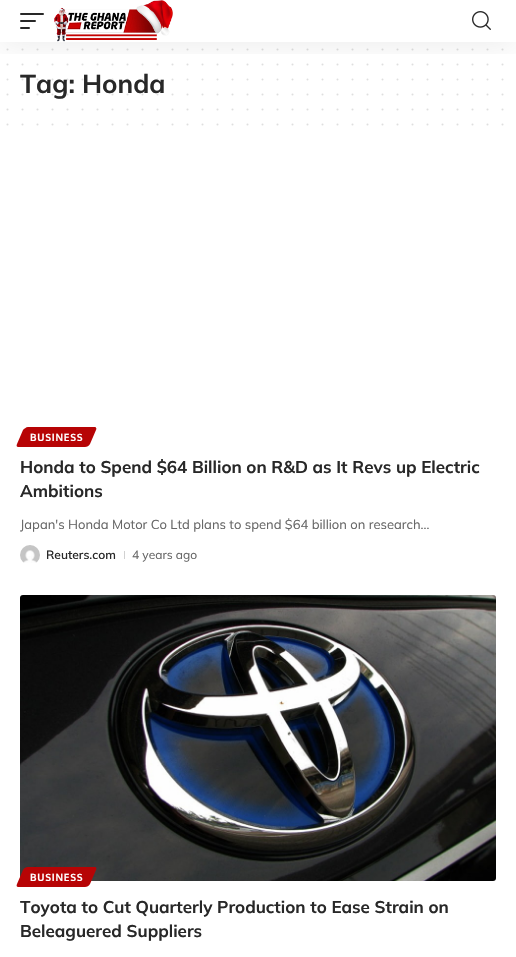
#include "include/core/SkBlurTypes.h"
#include "include/core/SkCanvas.h"
#include "include/core/SkData.h"
#include "include/core/SkFont.h"
#include "include/core/SkFontMgr.h"
#include "include/core/SkImage.h"
#include "include/core/SkMaskFilter.h"
#include "include/core/SkPaint.h"
#include "include/core/SkPathBuilder.h"
#include "include/core/SkTextBlob.h"
#include "include/effects/SkDashPathEffect.h"
#include "include/effects/SkGradientShader.h"
#include "include/utils/SkParsePath.h"

extern sk_sp<SkFontMgr> fontMgr;

void draw(SkCanvas* canvas) {
    SkPaint p;
    p.setAntiAlias(true);
    auto font = [&](const char* family, int weight, float size, bool italic = false) {
        SkFontStyle style(weight, SkFontStyle::kNormal_Width,
            italic ? SkFontStyle::kItalic_Slant : SkFontStyle::kUpright_Slant);
        SkFont result(fontMgr->matchFamilyStyle(family, style), size);
        result.setSubpixel(true);
        return result;
    };
    auto drawTracked = [&](const char* s, float x, float y, const SkFont& font, const SkPaint& ink, float letter, float word) {
        std::vector<SkGlyphID> glyphs(font.countText(s, strlen(s), SkTextEncoding::kUTF8));
        std::vector<float> xs(glyphs.size());
        font.textToGlyphs(s, strlen(s), SkTextEncoding::kUTF8, glyphs);
        font.getXPos(glyphs, xs, x);
        float extra = 0;
        for (size_t i = 0; i < glyphs.size(); i++) {
            xs[i] += extra;
            extra += letter + word * (glyphs[i] == font.unicharToGlyph(' '));
        }
        canvas->drawTextBlob(SkTextBlob::MakeFromPosHGlyphs(glyphs, xs, y, font), 0, 0, ink);
    };
    auto drawPhoto = [&](const char* path, float l, float t, float r, float b) {
        auto image = SkImages::DeferredFromEncodedData(SkData::MakeFromFileName(path));
        canvas->drawImageRect(image, SkRect::MakeLTRB(l, t, r, b), SkSamplingOptions());
    };
    canvas->clear(0xFFFFFFFF);
    p.setStyle(SkPaint::kStroke_Style);
    p.setStrokeWidth(2);
    p.setStrokeCap(SkPaint::kRound_Cap);
    p.setColor(0xFFDFDFDF);
    p.setPathEffect(SkDashPathEffect::Make({{0, 15}}, 0));
    canvas->drawPath(SkPathBuilder().moveTo(7.5f, 49.5f).lineTo(502.7f, 49.5f).detach(), p);
    p.setPathEffect(nullptr);
    p.setPathEffect(SkDashPathEffect::Make({{0, 15}}, 0));
    canvas->drawPath(SkPathBuilder().moveTo(7.5f, 64.5f).lineTo(502.7f, 64.5f).detach(), p);
    p.setPathEffect(nullptr);
    auto font1 = font("Mulish", 700, 26);
    p.setStyle(SkPaint::kFill_Style);
    p.setColor(0xFF282828);
    canvas->drawString("Tag: Honda", 20, 93, font1, p);
    p.setStyle(SkPaint::kStroke_Style);
    p.setColor(0x26282828);
    p.setPathEffect(SkDashPathEffect::Make({{0, 15}}, 0));
    canvas->drawPath(SkPathBuilder().moveTo(7.5f, 79.5f).lineTo(502.7f, 79.5f).detach(), p);
    p.setPathEffect(nullptr);
    canvas->save();
    canvas->clipRect(SkRect::MakeLTRB(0, 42, 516, 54));
    p.setStyle(SkPaint::kFill_Style);
    p.setColor(0x12000000);
    p.setMaskFilter(SkMaskFilter::MakeBlur(kNormal_SkBlurStyle, 15));
    canvas->drawRect(SkRect::MakeLTRB(0, 4, 516, 46), p);
    p.setMaskFilter(nullptr);
    canvas->restore();
    p.setColor(0xFF282828);
    canvas->drawRoundRect(SkRect::MakeLTRB(20, 13, 44, 15), 1, 1, p);
    canvas->drawRoundRect(SkRect::MakeLTRB(20, 20, 36, 22), 1, 1, p);
    canvas->drawRoundRect(SkRect::MakeLTRB(20, 27, 30, 29), 1, 1, p);
    drawPhoto("media/1.png", 54, 0, 173, 42);
    drawPhoto("media/2.png", 472, 11, 491, 30);
    p.setStyle(SkPaint::kStroke_Style);
    p.setColor(0xFFDFDFDF);
    p.setPathEffect(SkDashPathEffect::Make({{0, 15}}, 0));
    canvas->drawPath(SkPathBuilder().moveTo(7.5f, 94.5f).lineTo(502.7f, 94.5f).detach(), p);
    p.setPathEffect(nullptr);
    p.setPathEffect(SkDashPathEffect::Make({{0, 15}}, 0));
    canvas->drawPath(SkPathBuilder().moveTo(7.5f, 109.5f).lineTo(502.7f, 109.5f).detach(), p);
    p.setPathEffect(nullptr);
    p.setPathEffect(SkDashPathEffect::Make({{0, 15}}, 0));
    canvas->drawPath(SkPathBuilder().moveTo(7.5f, 124.5f).lineTo(502.7f, 124.5f).detach(), p);
    p.setPathEffect(nullptr);
    p.setStyle(SkPaint::kFill_Style);
    p.setColor(0xFFB70405);
    canvas->drawPath(SkPathBuilder().moveTo(28, 427).lineTo(95, 427).cubicTo(96, 427, 97, 429, 96, 430).lineTo(90, 444).cubicTo(89, 446, 87, 447, 85, 447).lineTo(18, 447).cubicTo(17, 447, 16, 446, 17, 444).lineTo(23, 430).cubicTo(24, 429, 26, 427, 28, 427).close().detach(), p);
    auto font2 = font("Oxygen", 700, 10);
    p.setColor(0xFFFFFFFF);
    drawTracked("BUSINESS", 30, 441, font2, p, 0.75f, 0);
    auto font3 = font("Mulish", 700, 17);
    p.setColor(0xFF282828);
    canvas->drawString("Honda to Spend $64 Billion on R&D as It Revs up Electric", 20, 473, font3, p);
    canvas->drawString("Ambitions", 20, 497, font3, p);
    auto font4 = font("Mulish", 400, 13);
    p.setColor(0xFF666666);
    canvas->drawString("Japan's Honda Motor Co Ltd plans to spend $64 billion on research…", 20, 529, font4, p);
    drawPhoto("media/3.png", 20, 545, 40, 563);
    auto font5 = font("Mulish", 600, 12);
    p.setColor(0xFF282828);
    canvas->drawString("Reuters.com", 46, 559, font5, p);
    p.setColor(0xFFD1D1D1);
    canvas->drawRect(SkRect::MakeLTRB(124, 551, 125, 559), p);
    auto font6 = font("Mulish", 400, 12);
    p.setColor(0xFF666666);
    canvas->drawString("4 years ago", 132, 559, font6, p);
    drawPhoto("media/4.png", 20, 595, 496, 881);
    p.setColor(0xFFB70405);
    canvas->drawPath(SkPathBuilder().moveTo(28, 867).lineTo(95, 867).cubicTo(96, 867, 97, 868, 96, 870).lineTo(90, 884).cubicTo(89, 886, 87, 887, 85, 887).lineTo(18, 887).cubicTo(17, 887, 16, 886, 17, 884).lineTo(23, 870).cubicTo(24, 868, 26, 867, 28, 867).close().detach(), p);
    p.setColor(0xFFFFFFFF);
    drawTracked("BUSINESS", 30, 881, font2, p, 0.75f, 0);
    p.setColor(0xFF282828);
    canvas->drawString("Toyota to Cut Quarterly Production to Ease Strain on", 20, 913, font3, p);
    canvas->drawString("Beleaguered Suppliers", 20, 937, font3, p);
}
